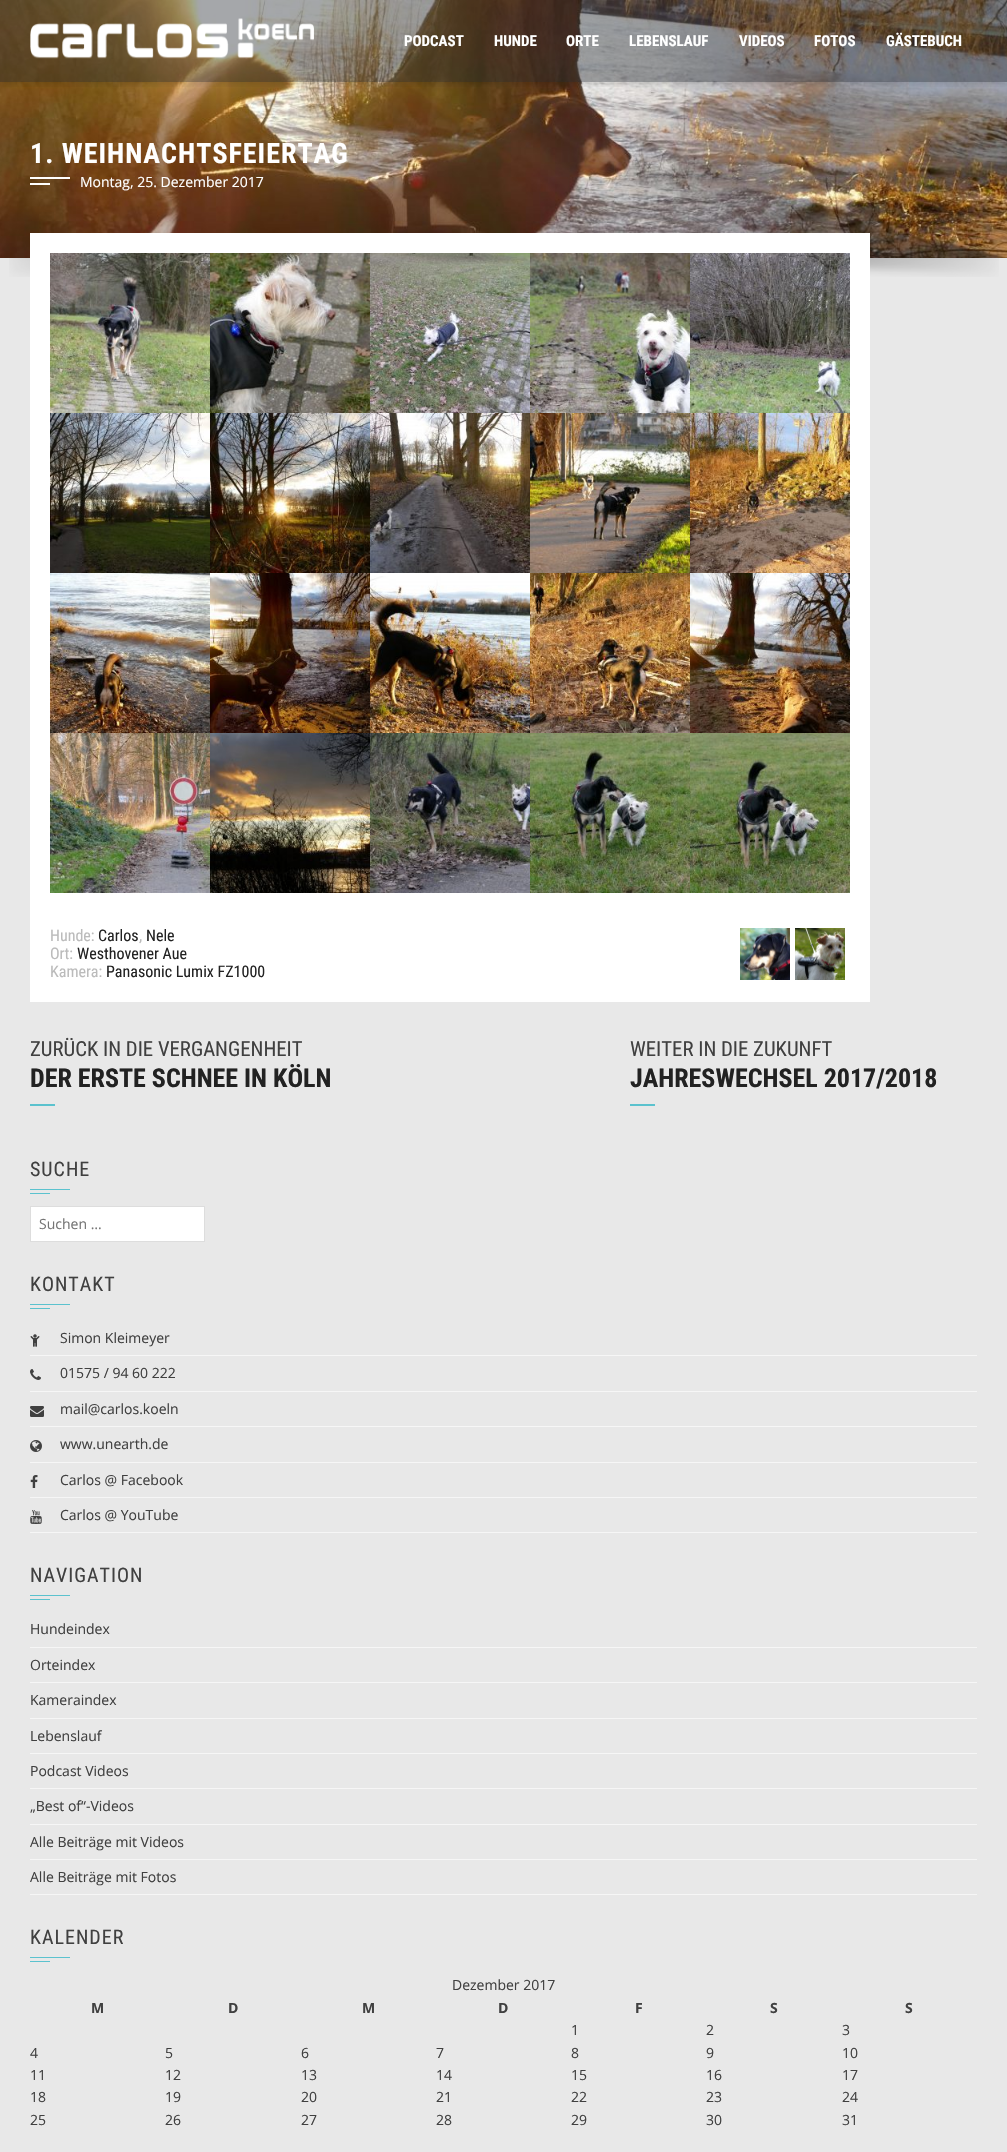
#include "include/core/SkBlurTypes.h"
#include "include/core/SkCanvas.h"
#include "include/core/SkData.h"
#include "include/core/SkFont.h"
#include "include/core/SkFontMgr.h"
#include "include/core/SkImage.h"
#include "include/core/SkMaskFilter.h"
#include "include/core/SkPaint.h"
#include "include/core/SkPathBuilder.h"
#include "include/core/SkTextBlob.h"
#include "include/effects/SkDashPathEffect.h"
#include "include/effects/SkGradientShader.h"
#include "include/utils/SkParsePath.h"

extern sk_sp<SkFontMgr> fontMgr;

void draw(SkCanvas* canvas) {
    SkPaint p;
    p.setAntiAlias(true);
    auto font = [&](const char* family, int weight, float size, bool italic = false) {
        SkFontStyle style(weight, SkFontStyle::kNormal_Width,
            italic ? SkFontStyle::kItalic_Slant : SkFontStyle::kUpright_Slant);
        SkFont result(fontMgr->matchFamilyStyle(family, style), size);
        result.setSubpixel(true);
        return result;
    };
    auto drawTracked = [&](const char* s, float x, float y, const SkFont& font, const SkPaint& ink, float letter, float word) {
        std::vector<SkGlyphID> glyphs(font.countText(s, strlen(s), SkTextEncoding::kUTF8));
        std::vector<float> xs(glyphs.size());
        font.textToGlyphs(s, strlen(s), SkTextEncoding::kUTF8, glyphs);
        font.getXPos(glyphs, xs, x);
        float extra = 0;
        for (size_t i = 0; i < glyphs.size(); i++) {
            xs[i] += extra;
            extra += letter + word * (glyphs[i] == font.unicharToGlyph(' '));
        }
        canvas->drawTextBlob(SkTextBlob::MakeFromPosHGlyphs(glyphs, xs, y, font), 0, 0, ink);
    };
    auto drawPhoto = [&](const char* path, float l, float t, float r, float b) {
        auto image = SkImages::DeferredFromEncodedData(SkData::MakeFromFileName(path));
        canvas->drawImageRect(image, SkRect::MakeLTRB(l, t, r, b), SkSamplingOptions());
    };
    canvas->clear(0xFFE8E8E8);
    drawPhoto("media/2.png", 0, 0, 1007, 258);
    canvas->save();
    canvas->clipRect(SkRect::MakeLTRB(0, 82, 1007, 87));
    p.setColor(0x33000000);
    p.setMaskFilter(SkMaskFilter::MakeBlur(kNormal_SkBlurStyle, 4));
    canvas->drawRect(SkRect::MakeLTRB(0, 0, 1007, 82), p);
    p.setMaskFilter(nullptr);
    canvas->restore();
    p.setColor(0x661E242A);
    canvas->drawRect(SkRect::MakeLTRB(0, 0, 1007, 82), p);
    drawPhoto("media/1.png", 30, 18, 314, 59);
    auto font1 = font("Roboto Condensed", 700, 15);
    p.setColor(0xFFFFFFFF);
    {
        const struct { const char* s; float x, y; } items[] = {
            {"PODCAST", 404, 46},
            {"HUNDE", 494, 46},
            {"ORTE", 566, 46},
            {"LEBENSLAUF", 629, 46},
            {"VIDEOS", 739, 46},
            {"FOTOS", 814, 46},
            {"GÄSTEBUCH", 886, 46},
        };
        for (auto [s, x, y] : items) {
            canvas->drawString(s, x, y, font1, p);
        }
    }
    auto font2 = font("Roboto Condensed", 700, 28);
    drawTracked("1. WEIHNACHTSFEIERTAG", 30, 163, font2, p, 1, 0);
    canvas->drawRect(SkRect::MakeLTRB(30, 177, 70, 179), p);
    canvas->drawRect(SkRect::MakeLTRB(30, 183, 50, 185), p);
    auto font3 = font("Open Sans", 400, 14);
    canvas->drawString("Montag, 25. Dezember 2017", 80, 187, font3, p);
    drawPhoto("media/3.png", 9, 258, 999, 277);
    canvas->drawRect(SkRect::MakeLTRB(30, 233, 870, 1002), p);
    drawPhoto("media/4.png", 50, 253, 210, 413);
    drawPhoto("media/5.png", 210, 253, 370, 413);
    drawPhoto("media/6.png", 370, 253, 530, 413);
    drawPhoto("media/7.png", 530, 253, 690, 413);
    drawPhoto("media/8.png", 690, 253, 850, 413);
    drawPhoto("media/9.png", 50, 413, 210, 573);
    drawPhoto("media/10.png", 210, 413, 370, 573);
    drawPhoto("media/11.png", 370, 413, 530, 573);
    drawPhoto("media/12.png", 530, 413, 690, 573);
    drawPhoto("media/13.png", 690, 413, 850, 573);
    drawPhoto("media/14.png", 50, 573, 210, 733);
    drawPhoto("media/15.png", 210, 573, 370, 733);
    drawPhoto("media/16.png", 370, 576, 530, 733);
    drawPhoto("media/17.png", 530, 573, 690, 733);
    drawPhoto("media/18.png", 690, 573, 850, 733);
    drawPhoto("media/19.png", 50, 733, 210, 893);
    drawPhoto("media/20.png", 210, 733, 370, 893);
    drawPhoto("media/21.png", 370, 733, 530, 893);
    drawPhoto("media/22.png", 530, 733, 690, 893);
    drawPhoto("media/23.png", 690, 733, 850, 893);
    auto font4 = font("Roboto Condensed", 400, 16);
    p.setColor(0xFFBBBBBB);
    canvas->drawString("Hunde:", 50, 941, font4, p);
    p.setColor(0xFF222222);
    canvas->drawString("Carlos", 98, 941, font4, p);
    p.setColor(0xFFBBBBBB);
    canvas->drawString(",", 139, 941, font4, p);
    p.setColor(0xFF222222);
    canvas->drawString("Nele", 146, 941, font4, p);
    drawPhoto("media/24.png", 740, 928, 790, 980);
    drawPhoto("media/25.png", 795, 928, 845, 980);
    p.setColor(0xFFBBBBBB);
    canvas->drawString("Ort:", 50, 959, font4, p);
    p.setColor(0xFF222222);
    canvas->drawString("Westhovener Aue", 77, 959, font4, p);
    p.setColor(0xFFBBBBBB);
    canvas->drawString("Kamera:", 50, 977, font4, p);
    p.setColor(0xFF222222);
    canvas->drawString("Panasonic Lumix FZ1000", 106, 977, font4, p);
    auto font5 = font("Roboto Condensed", 400, 20.75f);
    p.setColor(0xFF404040);
    canvas->drawString("ZURÜCK IN DIE VERGANGENHEIT", 30, 1056, font5, p);
    auto font6 = font("Roboto Condensed", 700, 26);
    p.setColor(0xFF222222);
    canvas->drawString("DER ERSTE SCHNEE IN KÖLN", 30, 1087, font6, p);
    p.setColor(0xFF5BC2CE);
    canvas->drawRect(SkRect::MakeLTRB(30, 1104, 55, 1106), p);
    p.setColor(0xFF404040);
    canvas->drawString("WEITER IN DIE ZUKUNFT", 630, 1056, font5, p);
    p.setColor(0xFF222222);
    canvas->drawString("JAHRESWECHSEL 2017/2018", 630, 1087, font6, p);
    p.setColor(0xFF5BC2CE);
    canvas->drawRect(SkRect::MakeLTRB(630, 1104, 655, 1106), p);
    auto font7 = font("Roboto Condensed", 400, 20);
    p.setColor(0xFF404040);
    drawTracked("SUCHE", 30, 1176, font7, p, 1, 0);
    p.setColor(0xFF5BC2CE);
    canvas->drawRect(SkRect::MakeLTRB(30, 1189, 70, 1190), p);
    canvas->drawRect(SkRect::MakeLTRB(30, 1193, 50, 1194), p);
    p.setColor(0xFFFFFFFF);
    canvas->drawRect(SkRect::MakeLTRB(30.5f, 1206.5f, 204.5f, 1241.5f), p);
    p.setStyle(SkPaint::kStroke_Style);
    p.setStrokeWidth(1);
    p.setColor(0xFFDDDDDD);
    canvas->drawRect(SkRect::MakeLTRB(30.5f, 1206.5f, 204.5f, 1241.5f), p);
    p.setStyle(SkPaint::kFill_Style);
    p.setColor(0xFF757575);
    canvas->drawString("Suchen …", 39, 1229, font3, p);
    p.setColor(0xFF404040);
    drawTracked("KONTAKT", 30, 1291, font7, p, 1, 0);
    {
        const struct { float l, t, r, b; SkColor color; } items[] = {
            {30, 1304, 70, 1305, 0xFF5BC2CE},
            {30, 1308, 50, 1309, 0xFF5BC2CE},
            {30, 1355, 977, 1356, 0xFFF6F6F6},
        };
        for (auto [l, t, r, b, color] : items) {
            p.setColor(color);
            canvas->drawRect(SkRect::MakeLTRB(l, t, r, b), p);
        }
    }
    drawPhoto("media/26.png", 30, 1334, 40, 1347);
    p.setColor(0xFF404040);
    canvas->drawString("Simon Kleimeyer", 60, 1343, font3, p);
    p.setColor(0xFFF6F6F6);
    canvas->drawRect(SkRect::MakeLTRB(30, 1391, 977, 1392), p);
    drawPhoto("media/27.png", 30, 1369, 41, 1380);
    p.setColor(0xFF404040);
    canvas->drawString("01575 / 94 60 222", 60, 1378, font3, p);
    p.setColor(0xFFF6F6F6);
    canvas->drawRect(SkRect::MakeLTRB(30, 1426, 977, 1427), p);
    drawPhoto("media/28.png", 30, 1406, 44, 1417);
    p.setColor(0xFF404040);
    canvas->drawString("mail@carlos.koeln", 60, 1414, font3, p);
    p.setColor(0xFFF6F6F6);
    canvas->drawRect(SkRect::MakeLTRB(30, 1462, 977, 1463), p);
    drawPhoto("media/29.png", 30, 1440, 42, 1452);
    p.setColor(0xFF404040);
    canvas->drawString("www.unearth.de", 60, 1449, font3, p);
    p.setColor(0xFFF6F6F6);
    canvas->drawRect(SkRect::MakeLTRB(30, 1497, 977, 1498), p);
    drawPhoto("media/30.png", 30, 1475, 38, 1488);
    p.setColor(0xFF404040);
    canvas->drawString("Carlos @ Facebook", 60, 1485, font3, p);
    p.setColor(0xFFF6F6F6);
    canvas->drawRect(SkRect::MakeLTRB(30, 1532, 977, 1533), p);
    drawPhoto("media/31.png", 30, 1510, 42, 1524);
    p.setColor(0xFF404040);
    canvas->drawString("Carlos @ YouTube", 60, 1520, font3, p);
    drawTracked("NAVIGATION", 30, 1582, font7, p, 1, 0);
    {
        const struct { float l, t, r, b; SkColor color; } items[] = {
            {30, 1595, 70, 1596, 0xFF5BC2CE},
            {30, 1599, 50, 1600, 0xFF5BC2CE},
            {30, 1647, 977, 1648, 0xFFF6F6F6},
        };
        for (auto [l, t, r, b, color] : items) {
            p.setColor(color);
            canvas->drawRect(SkRect::MakeLTRB(l, t, r, b), p);
        }
    }
    p.setColor(0xFF404040);
    canvas->drawString("Hundeindex", 30, 1634, font3, p);
    p.setColor(0xFFF6F6F6);
    canvas->drawRect(SkRect::MakeLTRB(30, 1682, 977, 1683), p);
    p.setColor(0xFF404040);
    canvas->drawString("Orteindex", 30, 1670, font3, p);
    p.setColor(0xFFF6F6F6);
    canvas->drawRect(SkRect::MakeLTRB(30, 1718, 977, 1719), p);
    p.setColor(0xFF404040);
    canvas->drawString("Kameraindex", 30, 1705, font3, p);
    p.setColor(0xFFF6F6F6);
    canvas->drawRect(SkRect::MakeLTRB(30, 1753, 977, 1754), p);
    p.setColor(0xFF404040);
    canvas->drawString("Lebenslauf", 30, 1741, font3, p);
    p.setColor(0xFFF6F6F6);
    canvas->drawRect(SkRect::MakeLTRB(30, 1788, 977, 1789), p);
    p.setColor(0xFF404040);
    canvas->drawString("Podcast Videos", 30, 1776, font3, p);
    p.setColor(0xFFF6F6F6);
    canvas->drawRect(SkRect::MakeLTRB(30, 1824, 977, 1825), p);
    p.setColor(0xFF404040);
    canvas->drawString("„Best of“-Videos", 30, 1811, font3, p);
    p.setColor(0xFFF6F6F6);
    canvas->drawRect(SkRect::MakeLTRB(30, 1859, 977, 1860), p);
    p.setColor(0xFF404040);
    canvas->drawString("Alle Beiträge mit Videos", 30, 1847, font3, p);
    p.setColor(0xFFF6F6F6);
    canvas->drawRect(SkRect::MakeLTRB(30, 1894, 977, 1895), p);
    p.setColor(0xFF404040);
    canvas->drawString("Alle Beiträge mit Fotos", 30, 1882, font3, p);
    drawTracked("KALENDER", 30, 1944, font7, p, 1, 0);
    p.setColor(0xFF5BC2CE);
    canvas->drawRect(SkRect::MakeLTRB(30, 1957, 70, 1958), p);
    canvas->drawRect(SkRect::MakeLTRB(30, 1961, 50, 1962), p);
    p.setColor(0xFF404040);
    canvas->drawString("Dezember 2017", 452, 1990, font3, p);
    auto font8 = font("Open Sans", 700, 14);
    {
        const struct { const char* s; float x, y; } items[] = {
            {"M", 91, 2013},
            {"D", 228, 2013},
            {"M", 362, 2013},
            {"D", 498, 2013},
            {"F", 635, 2013},
            {"S", 770, 2013},
            {"S", 905, 2013},
        };
        for (auto [s, x, y] : items) {
            canvas->drawString(s, x, y, font8, p);
        }
    }
    {
        const struct { const char* s; float x, y; } items[] = {
            {"1", 571, 2035},
            {"2", 706, 2035},
            {"3", 842, 2035},
            {"4", 30, 2058},
            {"5", 165, 2058},
            {"6", 301, 2058},
            {"7", 436, 2058},
            {"8", 571, 2058},
            {"9", 706, 2058},
            {"10", 842, 2058},
            {"11", 30, 2080},
            {"12", 165, 2080},
            {"13", 301, 2080},
            {"14", 436, 2080},
            {"15", 571, 2080},
            {"16", 706, 2080},
            {"17", 842, 2080},
            {"18", 30, 2102},
            {"19", 165, 2102},
            {"20", 301, 2102},
            {"21", 436, 2102},
            {"22", 571, 2102},
            {"23", 706, 2102},
            {"24", 842, 2102},
            {"25", 30, 2125},
            {"26", 165, 2125},
            {"27", 301, 2125},
            {"28", 436, 2125},
            {"29", 571, 2125},
            {"30", 706, 2125},
            {"31", 842, 2125},
        };
        for (auto [s, x, y] : items) {
            canvas->drawString(s, x, y, font3, p);
        }
    }
}
